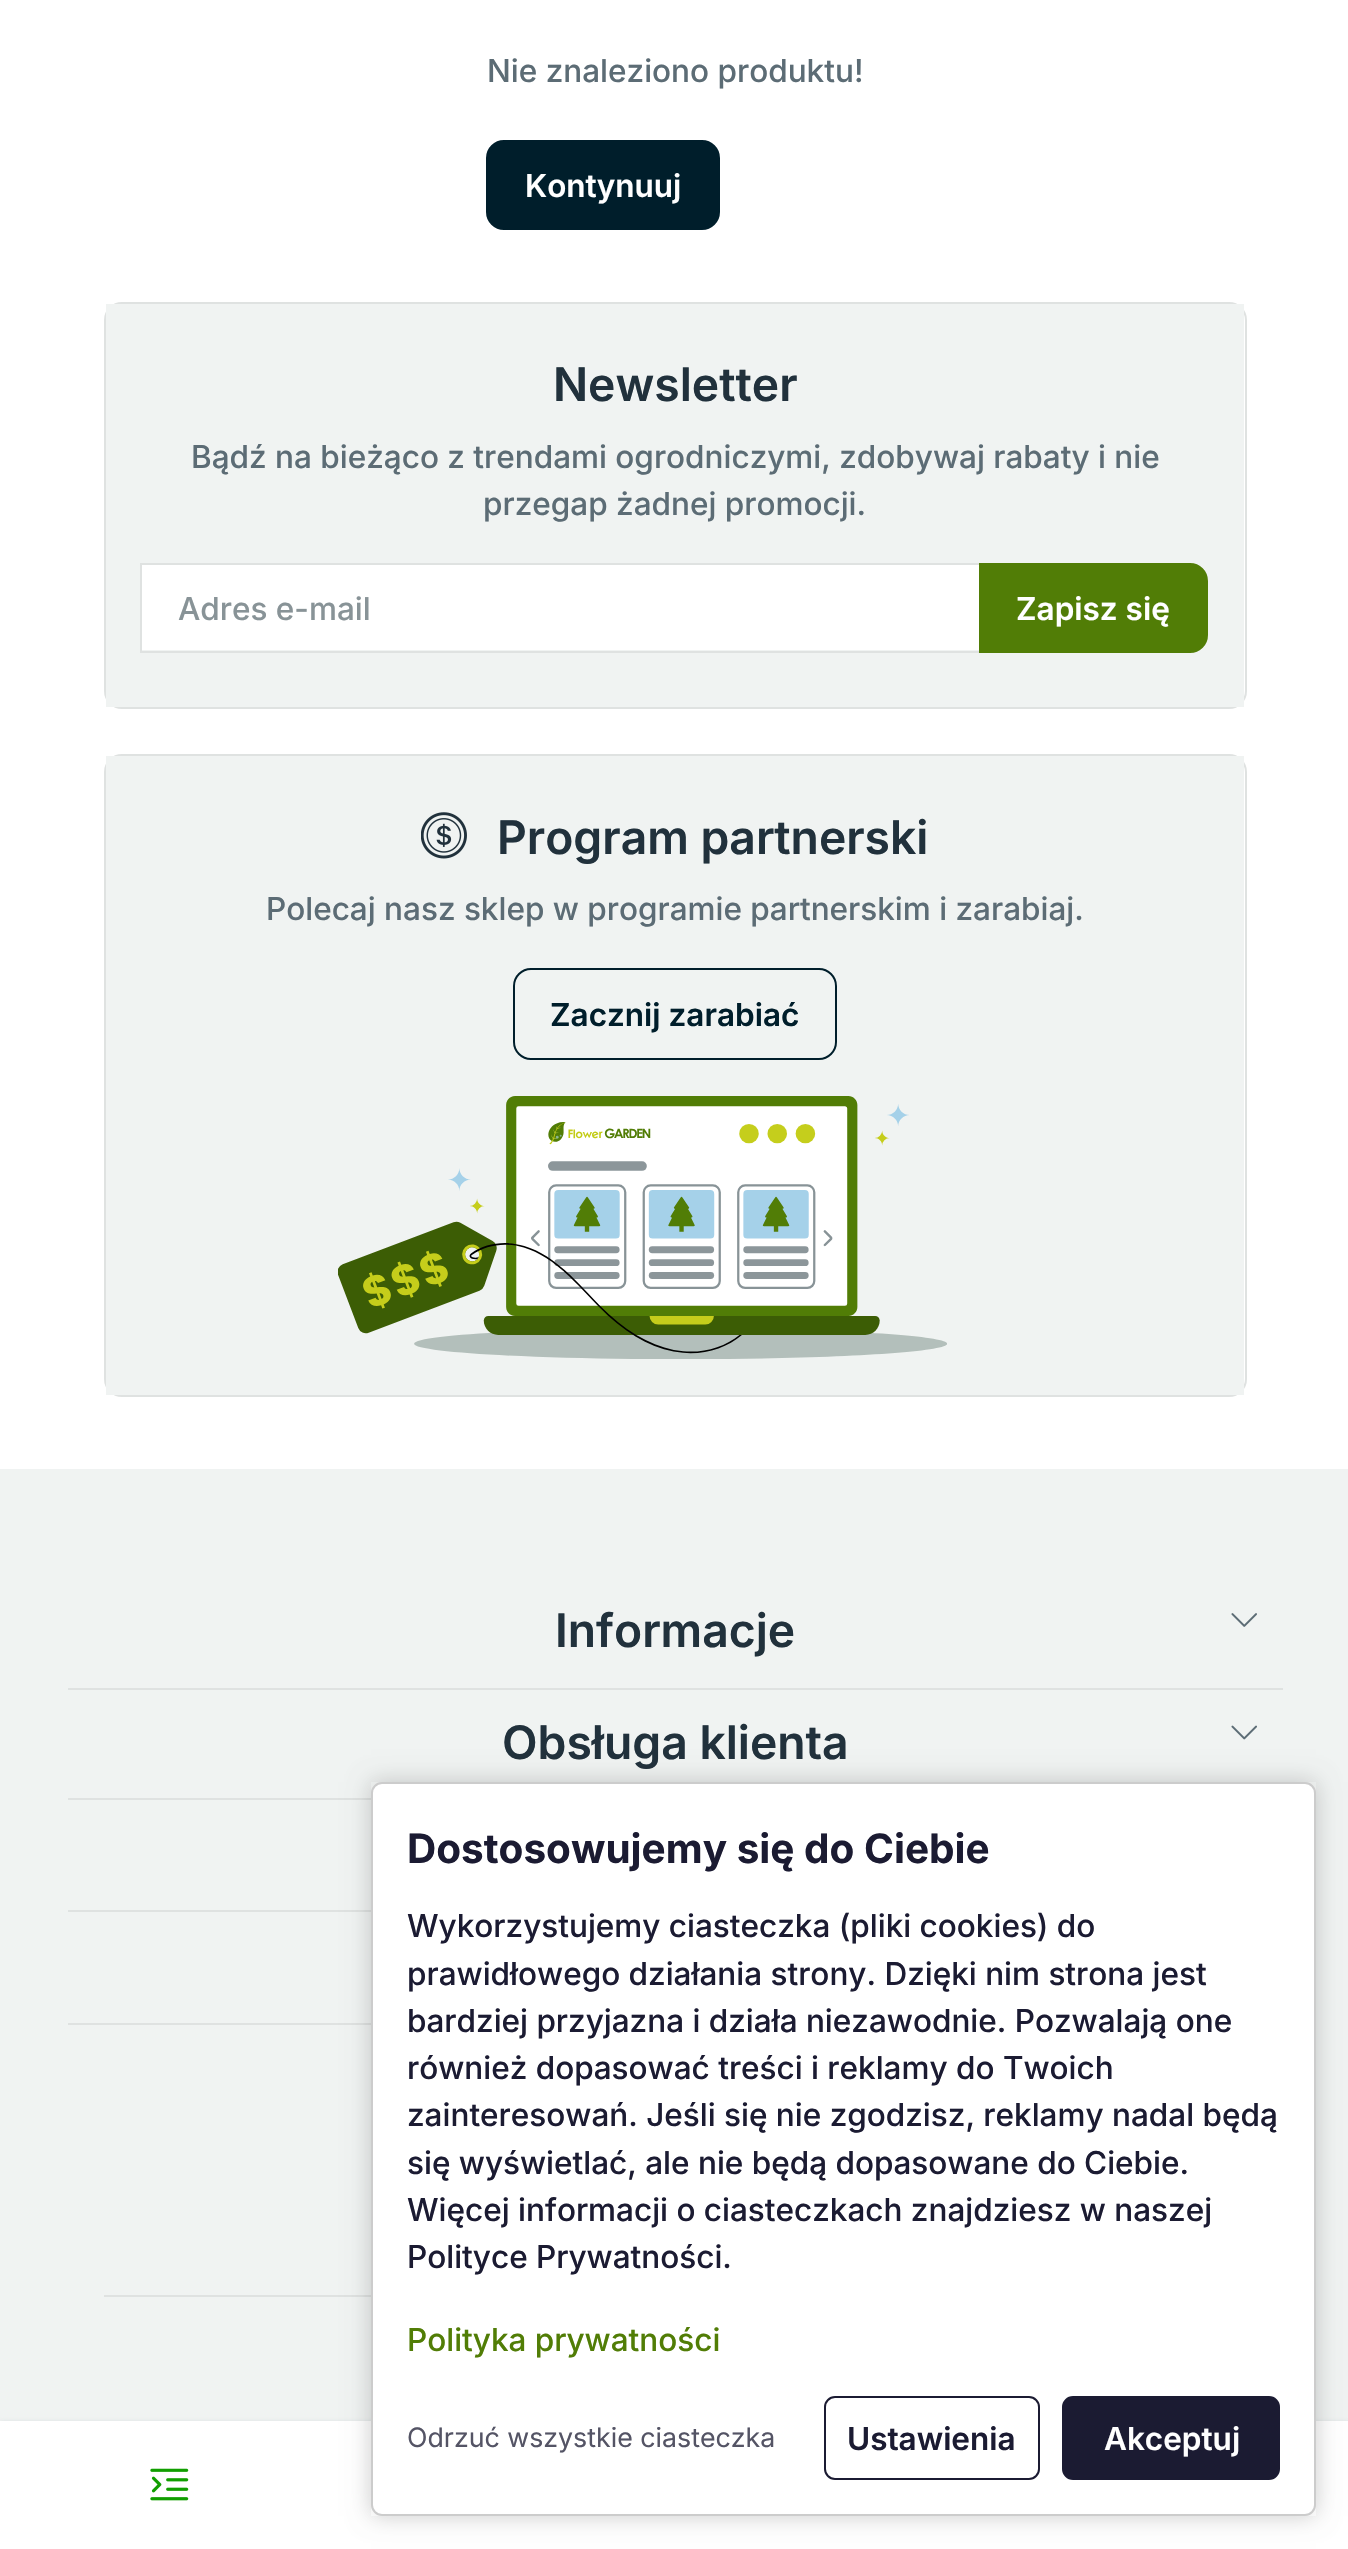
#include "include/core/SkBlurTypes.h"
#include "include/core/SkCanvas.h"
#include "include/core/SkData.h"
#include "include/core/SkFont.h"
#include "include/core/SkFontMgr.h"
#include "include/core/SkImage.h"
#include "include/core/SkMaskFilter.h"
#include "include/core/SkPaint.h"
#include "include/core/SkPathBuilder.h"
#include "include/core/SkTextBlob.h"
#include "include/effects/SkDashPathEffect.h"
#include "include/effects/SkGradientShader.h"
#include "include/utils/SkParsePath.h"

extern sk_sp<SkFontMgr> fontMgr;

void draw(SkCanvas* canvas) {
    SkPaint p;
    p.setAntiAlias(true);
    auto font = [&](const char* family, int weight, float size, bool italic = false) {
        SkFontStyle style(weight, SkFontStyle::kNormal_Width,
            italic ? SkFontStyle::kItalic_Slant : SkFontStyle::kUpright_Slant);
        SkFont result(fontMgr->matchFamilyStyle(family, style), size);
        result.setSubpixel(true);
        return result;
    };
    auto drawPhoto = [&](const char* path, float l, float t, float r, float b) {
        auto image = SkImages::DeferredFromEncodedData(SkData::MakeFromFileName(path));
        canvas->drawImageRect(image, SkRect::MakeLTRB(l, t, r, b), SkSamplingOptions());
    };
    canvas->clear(0xFFFFFFFF);
    auto font1 = font("Inter", 500, 31.5f);
    p.setColor(0xFF5C6C75);
    canvas->drawString("Nie znaleziono produktu!", 487, 82, font1, p);
    p.setColor(0xFF001E2B);
    canvas->drawRoundRect(SkRect::MakeLTRB(487, 141, 719, 229), 17, 17, p);
    p.setStyle(SkPaint::kStroke_Style);
    p.setStrokeWidth(2);
    canvas->drawRoundRect(SkRect::MakeLTRB(487, 141, 719, 229), 17, 17, p);
    auto font2 = font("Inter", 600, 31.5f);
    p.setStyle(SkPaint::kFill_Style);
    p.setColor(0xFFFFFFFF);
    canvas->drawString("Kontynuuj", 525, 197, font2, p);
    p.setStyle(SkPaint::kStroke_Style);
    p.setColor(0xFFDFE2E1);
    canvas->drawRoundRect(SkRect::MakeLTRB(105, 303, 1246, 708), 17, 17, p);
    p.setStyle(SkPaint::kFill_Style);
    p.setColor(0xFFF0F3F2);
    canvas->drawRect(SkRect::MakeLTRB(106, 304, 1244, 707), p);
    auto font3 = font("Inter", 600, 46.25f);
    p.setColor(0xFF21313C);
    canvas->drawString("Newsletter", 553, 401, font3, p);
    p.setColor(0xFF5C6C75);
    canvas->drawString("Bądź na bieżąco z trendami ogrodniczymi, zdobywaj rabaty i nie", 191, 468, font1, p);
    canvas->drawString("przegap żadnej promocji.", 483, 515, font1, p);
    p.setColor(0xFFFFFFFF);
    canvas->drawRect(SkRect::MakeLTRB(142, 565, 979, 650), p);
    p.setStyle(SkPaint::kStroke_Style);
    p.setColor(0xFFDFE2E1);
    canvas->drawRect(SkRect::MakeLTRB(141, 564, 980, 652), p);
    p.setStyle(SkPaint::kFill_Style);
    p.setColor(0xFF889397);
    canvas->drawString("Adres e-mail", 178, 620, font1, p);
    p.setColor(0xFF517D06);
    canvas->drawPath(SkPathBuilder().moveTo(980, 564).lineTo(1190, 564).cubicTo(1199.5f, 564, 1207, 571.5f, 1207, 581).lineTo(1207, 635).cubicTo(1207, 644.5f, 1199.5f, 652, 1190, 652).lineTo(980, 652).close().detach(), p);
    p.setStyle(SkPaint::kStroke_Style);
    canvas->drawPath(SkPathBuilder().moveTo(980, 564).lineTo(1190, 564).cubicTo(1199.5f, 564, 1207, 571.5f, 1207, 581).lineTo(1207, 635).cubicTo(1207, 644.5f, 1199.5f, 652, 1190, 652).lineTo(980, 652).close().detach(), p);
    p.setStyle(SkPaint::kFill_Style);
    p.setColor(0xFFFFFFFF);
    canvas->drawString("Zapisz się", 1016, 620, font2, p);
    p.setStyle(SkPaint::kStroke_Style);
    p.setColor(0xFFDFE2E1);
    canvas->drawRoundRect(SkRect::MakeLTRB(105, 755, 1246, 1396), 17, 17, p);
    p.setStyle(SkPaint::kFill_Style);
    p.setColor(0xFFF0F3F2);
    canvas->drawRect(SkRect::MakeLTRB(106, 756, 1244, 1395), p);
    drawPhoto("media/1.png", 421, 812, 467, 859);
    p.setColor(0xFF21313C);
    canvas->drawString("Program partnerski", 497, 854, font3, p);
    p.setColor(0xFF5C6C75);
    canvas->drawString("Polecaj nasz sklep w programie partnerskim i zarabiaj.", 266, 920, font1, p);
    p.setStyle(SkPaint::kStroke_Style);
    p.setColor(0xFF001E2B);
    canvas->drawRoundRect(SkRect::MakeLTRB(514, 969, 836, 1059), 17, 17, p);
    p.setStyle(SkPaint::kFill_Style);
    canvas->drawString("Zacznij zarabiać", 550, 1026, font2, p);
    drawPhoto("media/2.png", 338, 1096, 947, 1359);
    p.setColor(0xFFF0F3F2);
    canvas->drawRect(SkRect::MakeLTRB(0, 1469, 1348, 2421), p);
    p.setColor(0xFFDFE2E1);
    canvas->drawRect(SkRect::MakeLTRB(68, 1688, 1283, 1690), p);
    p.setColor(0xFF21313C);
    canvas->drawString("Informacje", 555, 1647, font3, p);
    drawPhoto("media/3.png", 1231, 1613, 1257, 1627);
    p.setColor(0xFFDFE2E1);
    canvas->drawRect(SkRect::MakeLTRB(68, 1798, 371, 1800), p);
    p.setColor(0xFF21313C);
    canvas->drawString("Obsługa klienta", 502, 1759, font3, p);
    drawPhoto("media/4.png", 1231, 1725, 1257, 1740);
    {
        const struct { float l, t, r, b; SkColor color; } items[] = {
            {68, 1910, 371, 1912, 0xFFDFE2E1},
            {68, 2023, 371, 2025, 0xFFDFE2E1},
            {104, 2295, 371, 2297, 0xFFDFE2E1},
        };
        for (auto [l, t, r, b, color] : items) {
            p.setColor(color);
            canvas->drawRect(SkRect::MakeLTRB(l, t, r, b), p);
        }
    }
    p.setColor(0x33919EAB);
    p.setMaskFilter(SkMaskFilter::MakeBlur(kNormal_SkBlurStyle, 2));
    canvas->drawRect(SkRect::MakeLTRB(0, 2421, 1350, 2549), p);
    p.setMaskFilter(nullptr);
    p.setColor(0xFFFFFFFF);
    canvas->drawRect(SkRect::MakeLTRB(0, 2421, 1348, 2549), p);
    canvas->save();
    canvas->clipPath(SkPathBuilder(SkPathFillType::kEvenOdd).moveTo(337, 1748).lineTo(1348, 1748).lineTo(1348, 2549).lineTo(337, 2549).close().moveTo(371, 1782).lineTo(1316, 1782).lineTo(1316, 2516).lineTo(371, 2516).close().detach(), true);
    p.setColor(0x1A000000);
    p.setMaskFilter(SkMaskFilter::MakeBlur(kNormal_SkBlurStyle, 11));
    canvas->drawRect(SkRect::MakeLTRB(371, 1782, 1316, 2516), p);
    p.setMaskFilter(nullptr);
    canvas->restore();
    p.setMaskFilter(SkMaskFilter::MakeBlur(kNormal_SkBlurStyle, 11));
    canvas->drawRoundRect(SkRect::MakeLTRB(371, 1782, 1316, 2516), 11, 11, p);
    p.setMaskFilter(nullptr);
    p.setColor(0xFFFFFFFF);
    canvas->drawRoundRect(SkRect::MakeLTRB(372, 1783, 1315, 2515), 10, 10, p);
    p.setStyle(SkPaint::kStroke_Style);
    p.setColor(0xFFCCCCCC);
    canvas->drawRoundRect(SkRect::MakeLTRB(372, 1783, 1315, 2515), 10, 10, p);
    auto font4 = font("Inter", 700, 40.5f);
    p.setStyle(SkPaint::kFill_Style);
    p.setColor(0xFF1B1B32);
    canvas->drawString("Dostosowujemy się do Ciebie", 407, 1863, font4, p);
    {
        const struct { const char* s; float x, y; } items[] = {
            {"Wykorzystujemy ciasteczka (pliki cookies) do", 407, 1937},
            {"prawidłowego działania strony. Dzięki nim strona jest", 407, 1985},
            {"bardziej przyjazna i działa niezawodnie. Pozwalają one", 407, 2032},
            {"również dopasować treści i reklamy do Twoich", 407, 2079},
            {"zainteresowań. Jeśli się nie zgodzisz, reklamy nadal będą", 407, 2126},
            {"się wyświetlać, ale nie będą dopasowane do Ciebie.", 407, 2174},
            {"Więcej informacji o ciasteczkach znajdziesz w naszej", 407, 2221},
            {"Polityce Prywatności.", 407, 2268},
        };
        for (auto [s, x, y] : items) {
            canvas->drawString(s, x, y, font1, p);
        }
    }
    p.setColor(0xFF517D06);
    canvas->drawString("Polityka prywatności", 407, 2351, font1, p);
    auto font5 = font("Inter", 400, 26.75f);
    p.setColor(0xFF545465);
    canvas->drawString("Odrzuć wszystkie ciasteczka", 407, 2447, font5, p);
    p.setStyle(SkPaint::kStroke_Style);
    p.setColor(0xFF1B1B32);
    canvas->drawRoundRect(SkRect::MakeLTRB(825, 2397, 1039, 2479), 10, 10, p);
    p.setStyle(SkPaint::kFill_Style);
    canvas->drawString("Ustawienia", 847, 2450, font2, p);
    canvas->drawRoundRect(SkRect::MakeLTRB(1063, 2397, 1279, 2479), 10, 10, p);
    p.setStyle(SkPaint::kStroke_Style);
    canvas->drawRoundRect(SkRect::MakeLTRB(1063, 2397, 1279, 2479), 10, 10, p);
    p.setStyle(SkPaint::kFill_Style);
    p.setColor(0xFFFFFFFF);
    canvas->drawString("Akceptuj", 1104, 2450, font2, p);
    drawPhoto("media/5.png", 150, 2468, 189, 2501);
}
